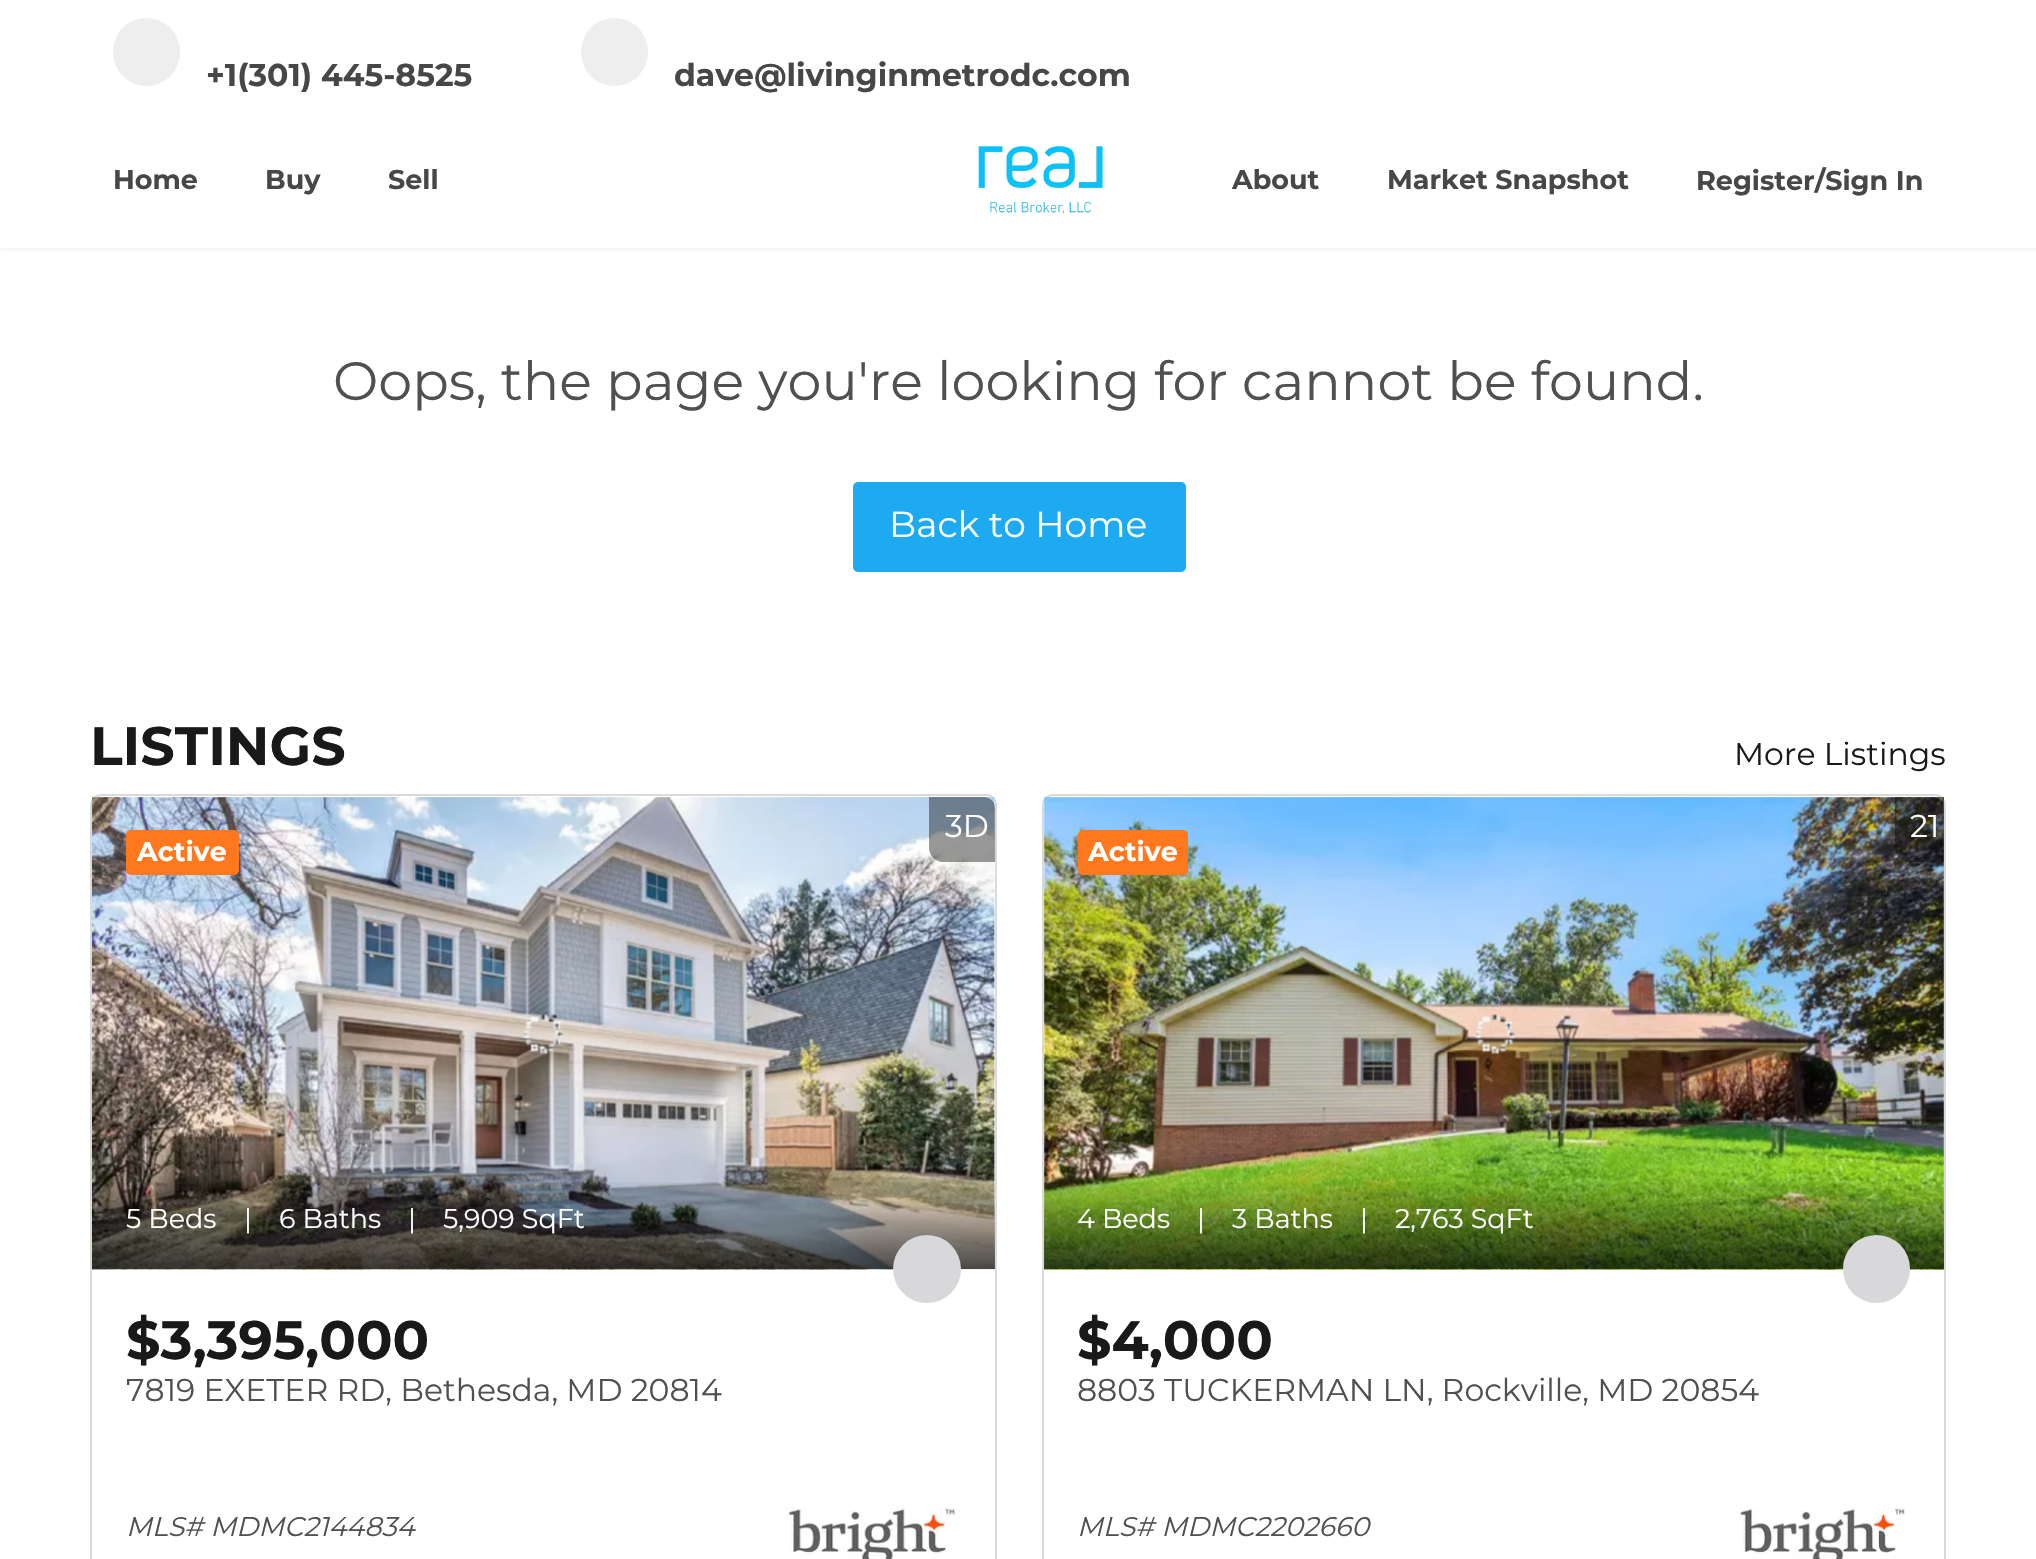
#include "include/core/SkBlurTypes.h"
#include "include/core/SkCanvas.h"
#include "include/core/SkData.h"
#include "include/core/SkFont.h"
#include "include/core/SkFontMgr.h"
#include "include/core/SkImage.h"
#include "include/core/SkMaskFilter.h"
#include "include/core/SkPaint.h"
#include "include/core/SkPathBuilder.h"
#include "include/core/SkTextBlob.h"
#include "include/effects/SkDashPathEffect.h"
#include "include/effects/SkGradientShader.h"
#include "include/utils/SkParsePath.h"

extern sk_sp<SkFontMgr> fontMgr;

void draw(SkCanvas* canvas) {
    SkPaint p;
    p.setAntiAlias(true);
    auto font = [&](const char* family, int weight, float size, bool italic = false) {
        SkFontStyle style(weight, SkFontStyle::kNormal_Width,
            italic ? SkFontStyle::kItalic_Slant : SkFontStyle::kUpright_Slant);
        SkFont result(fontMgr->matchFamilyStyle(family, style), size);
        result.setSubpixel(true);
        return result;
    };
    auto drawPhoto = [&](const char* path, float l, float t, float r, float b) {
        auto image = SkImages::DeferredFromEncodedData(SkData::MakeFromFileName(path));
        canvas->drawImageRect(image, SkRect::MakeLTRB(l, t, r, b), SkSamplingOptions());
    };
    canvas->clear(0xFFFFFFFF);
    p.setColor(0x0D000000);
    p.setMaskFilter(SkMaskFilter::MakeBlur(kNormal_SkBlurStyle, 2));
    canvas->drawRect(SkRect::MakeLTRB(-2, -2, 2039, 250), p);
    p.setMaskFilter(nullptr);
    p.setColor(0xFFFFFFFF);
    canvas->drawRect(SkRect::MakeLTRB(0, 0, 2036, 248), p);
    p.setColor(0xFFEEEEEE);
    canvas->drawRoundRect(SkRect::MakeLTRB(113, 18, 180, 86), 33.5f, 33.5f, p);
    auto font1 = font("Montserrat", 700, 31.5f);
    p.setColor(0xFF474747);
    canvas->drawString("+1(301) 445-8525", 206, 86, font1, p);
    p.setColor(0xFFEEEEEE);
    canvas->drawRoundRect(SkRect::MakeLTRB(581, 18, 648, 86), 33.5f, 33.5f, p);
    p.setColor(0xFF474747);
    canvas->drawString("dave@livinginmetrodc.com", 674, 86, font1, p);
    auto font2 = font("Montserrat", 700, 27);
    {
        const struct { const char* s; float x, y; } items[] = {
            {"Home", 113, 189},
            {"Buy", 265, 189},
            {"Sell", 388, 189},
        };
        for (auto [s, x, y] : items) {
            canvas->drawString(s, x, y, font2, p);
        }
    }
    drawPhoto("media/1.png", 978, 146, 1103, 214);
    {
        const struct { const char* s; float x, y; } items[] = {
            {"About", 1232, 189},
            {"Market Snapshot", 1387, 189},
            {"Register/Sign In", 1696, 190},
        };
        for (auto [s, x, y] : items) {
            canvas->drawString(s, x, y, font2, p);
        }
    }
    auto font3 = font("Montserrat", 400, 54);
    p.setColor(0xFF505050);
    canvas->drawString("Oops, the page you're looking for cannot be found.", 333, 400, font3, p);
    p.setColor(0xFF1DAAF0);
    canvas->drawRoundRect(SkRect::MakeLTRB(853, 482, 1186, 572), 5, 5, p);
    auto font4 = font("Montserrat", 400, 36);
    p.setColor(0xFFFFFFFF);
    canvas->drawString("Back to Home", 889, 537, font4, p);
    auto font5 = font("Montserrat", 700, 54);
    p.setColor(0xFF191919);
    canvas->drawString("LISTINGS", 90, 765, font5, p);
    auto font6 = font("Montserrat", 400, 31.5f);
    canvas->drawString("More Listings", 1734, 765, font6, p);
    p.setStyle(SkPaint::kStroke_Style);
    p.setStrokeWidth(2);
    p.setColor(0xFFDADADA);
    canvas->drawRoundRect(SkRect::MakeLTRB(91, 795, 996, 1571), 10, 10, p);
    drawPhoto("media/2.png", 92, 797, 995, 1270);
    drawPhoto("media/3.png", 523, 1014, 564, 1055);
    p.setStyle(SkPaint::kFill_Style);
    p.setColor(0x66000000);
    canvas->drawPath(SkPathBuilder().moveTo(929, 797).lineTo(984, 797).cubicTo(990, 797, 995, 802, 995, 808).lineTo(995, 862).lineTo(943, 862).cubicTo(935.5f, 862, 929, 855.5f, 929, 848).close().detach(), p);
    p.setColor(0xFFFFFFFF);
    canvas->drawString("3D", 945, 837, font6, p);
    {
        const SkColor colors[] = {0x00000000, 0xB3000000};
        const float stops[] = {0, 1};
        const SkPoint ends[] = {{543, 1179}, {543, 1269}};
        p.setShader(SkGradientShader::MakeLinear(ends, colors, stops, 2, SkTileMode::kClamp));
        p.setAlpha(255);
    }
    canvas->drawRect(SkRect::MakeLTRB(92, 1182, 995, 1269), p);
    auto font7 = font("Montserrat", 400, 27);
    p.setShader(nullptr);
    p.setColor(0xFFFFFFFF);
    {
        const struct { const char* s; float x, y; } items[] = {
            {"5 Beds", 126, 1228},
            {"|", 244, 1228},
            {"6 Baths", 279, 1228},
            {"|", 408, 1228},
            {"5,909 SqFt", 443, 1228},
        };
        for (auto [s, x, y] : items) {
            canvas->drawString(s, x, y, font7, p);
        }
    }
    p.setColor(0xFFFF781D);
    canvas->drawRoundRect(SkRect::MakeLTRB(126, 830, 239, 875), 5, 5, p);
    p.setColor(0xFFFFFFFF);
    canvas->drawString("Active", 137, 861, font2, p);
    p.setColor(0xFFD8D8DB);
    canvas->drawCircle(927, 1269, 34, p);
    p.setColor(0xFF191919);
    canvas->drawString("$3,395,000", 126, 1359, font5, p);
    p.setColor(0xFF505050);
    canvas->drawString("7819 EXETER RD, Bethesda, MD 20814", 126, 1401, font6, p);
    auto font8 = font("Montserrat", 400, 27, true);
    canvas->drawString("MLS# MDMC2144834", 126, 1536, font8, p);
    drawPhoto("media/4.png", 787, 1507, 955, 1559);
    p.setStyle(SkPaint::kStroke_Style);
    p.setColor(0xFFDADADA);
    canvas->drawRoundRect(SkRect::MakeLTRB(1043, 795, 1945, 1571), 10, 10, p);
    drawPhoto("media/5.png", 1044, 797, 1944, 1270);
    drawPhoto("media/6.png", 1475, 1014, 1516, 1055);
    p.setStyle(SkPaint::kFill_Style);
    p.setColor(0x66000000);
    canvas->drawPath(SkPathBuilder().moveTo(1895, 797).lineTo(1933, 797).cubicTo(1939, 797, 1944, 802, 1944, 808).lineTo(1944, 862).lineTo(1909, 862).cubicTo(1901.5f, 862, 1895, 855.5f, 1895, 848).close().detach(), p);
    p.setColor(0xFFFFFFFF);
    canvas->drawString("21", 1910, 837, font6, p);
    {
        const SkColor colors[] = {0x00000000, 0xB3000000};
        const float stops[] = {0, 1};
        const SkPoint ends[] = {{1494, 1179}, {1494, 1269}};
        p.setShader(SkGradientShader::MakeLinear(ends, colors, stops, 2, SkTileMode::kClamp));
        p.setAlpha(255);
    }
    canvas->drawRect(SkRect::MakeLTRB(1044, 1182, 1944, 1269), p);
    p.setShader(nullptr);
    p.setColor(0xFFFFFFFF);
    {
        const struct { const char* s; float x, y; } items[] = {
            {"4 Beds", 1077, 1228},
            {"|", 1197, 1228},
            {"3 Baths", 1232, 1228},
            {"|", 1360, 1228},
            {"2,763 SqFt", 1395, 1228},
        };
        for (auto [s, x, y] : items) {
            canvas->drawString(s, x, y, font7, p);
        }
    }
    p.setColor(0xFFFF781D);
    canvas->drawRoundRect(SkRect::MakeLTRB(1078, 830, 1188, 875), 5, 5, p);
    p.setColor(0xFFFFFFFF);
    canvas->drawString("Active", 1088, 861, font2, p);
    p.setColor(0xFFD8D8DB);
    canvas->drawRoundRect(SkRect::MakeLTRB(1843, 1235, 1910, 1303), 33.5f, 33.5f, p);
    p.setColor(0xFF191919);
    canvas->drawString("$4,000", 1077, 1359, font5, p);
    p.setColor(0xFF505050);
    canvas->drawString("8803 TUCKERMAN LN, Rockville, MD 20854", 1077, 1401, font6, p);
    canvas->drawString("MLS# MDMC2202660", 1077, 1536, font8, p);
    drawPhoto("media/7.png", 1739, 1507, 1905, 1559);
}
